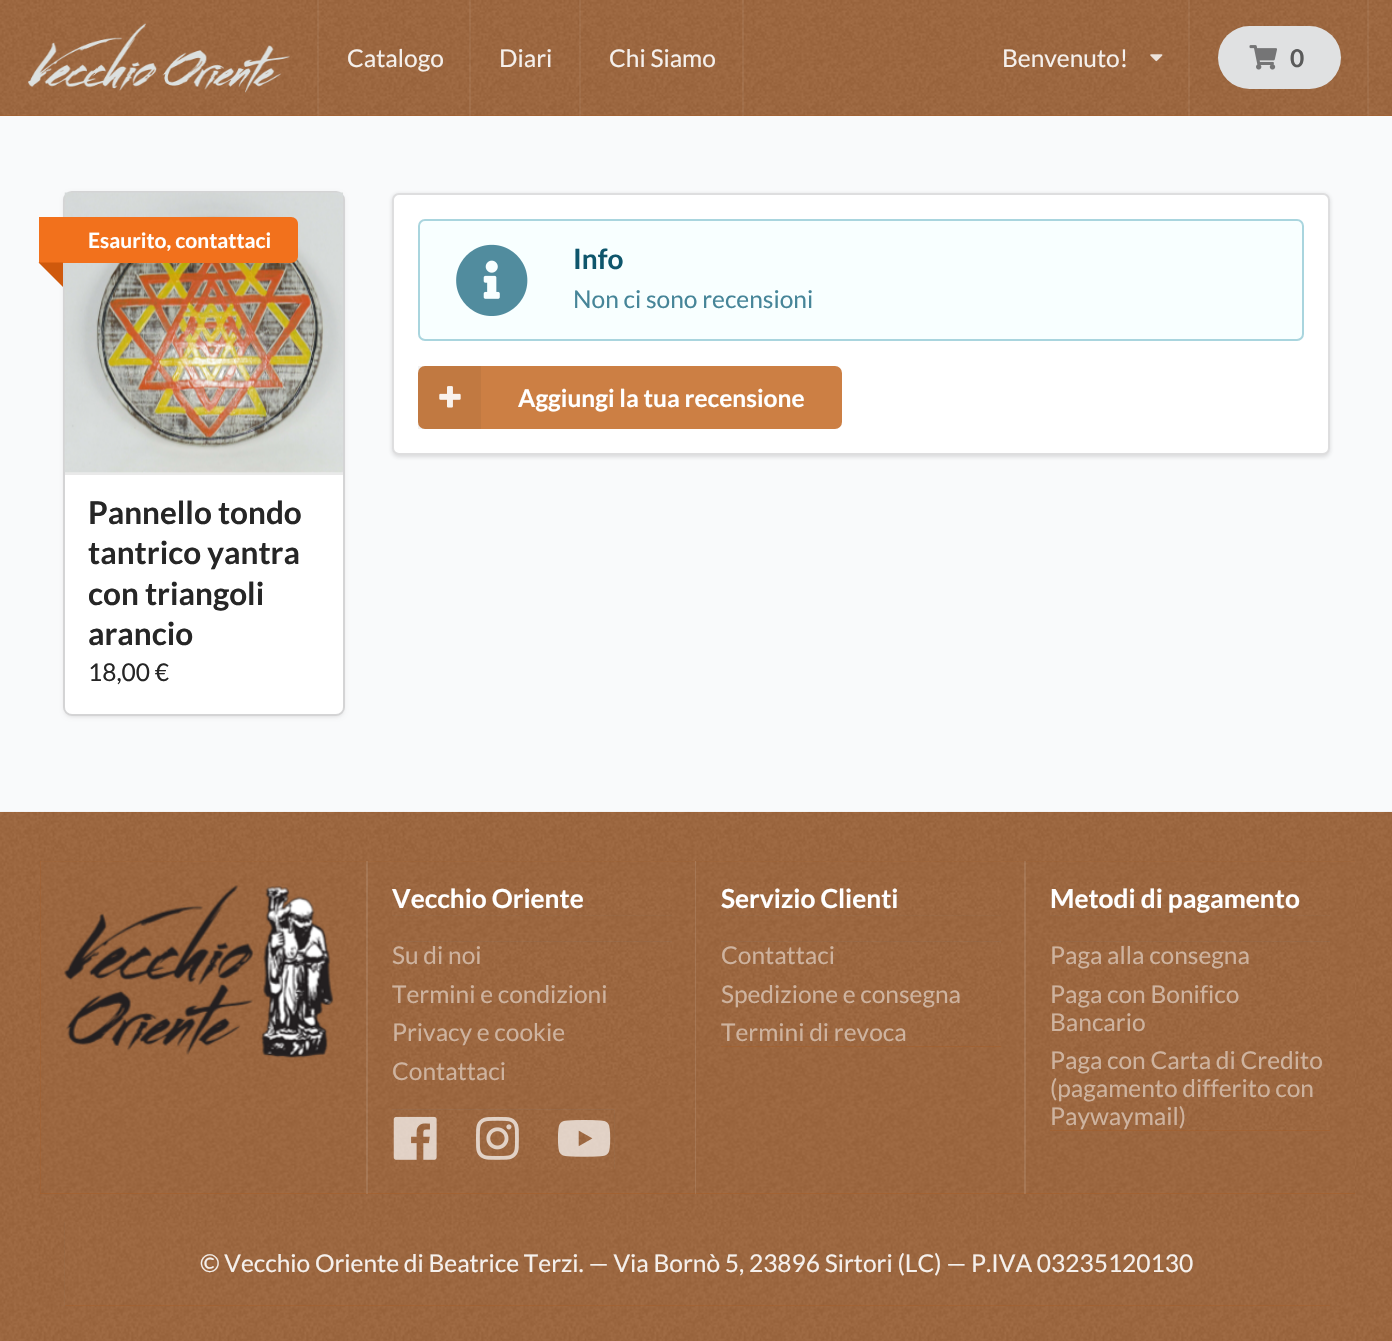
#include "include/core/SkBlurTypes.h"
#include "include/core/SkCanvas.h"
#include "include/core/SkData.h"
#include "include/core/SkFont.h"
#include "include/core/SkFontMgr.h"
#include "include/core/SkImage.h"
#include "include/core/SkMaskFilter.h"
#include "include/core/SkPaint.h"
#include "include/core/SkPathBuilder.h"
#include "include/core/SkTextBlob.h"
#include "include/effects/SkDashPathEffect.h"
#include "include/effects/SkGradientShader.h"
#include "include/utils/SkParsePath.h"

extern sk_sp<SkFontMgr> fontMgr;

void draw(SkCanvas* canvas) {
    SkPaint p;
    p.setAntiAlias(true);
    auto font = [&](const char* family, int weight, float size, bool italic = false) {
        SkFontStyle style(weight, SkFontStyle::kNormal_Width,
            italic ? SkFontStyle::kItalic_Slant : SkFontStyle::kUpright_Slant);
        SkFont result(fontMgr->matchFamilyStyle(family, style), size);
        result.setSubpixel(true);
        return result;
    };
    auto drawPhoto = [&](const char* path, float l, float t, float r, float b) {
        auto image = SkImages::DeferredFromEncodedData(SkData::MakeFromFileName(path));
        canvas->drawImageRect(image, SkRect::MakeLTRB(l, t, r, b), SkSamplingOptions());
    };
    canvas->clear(0xFFF9FAFB);
    p.setColor(0xFFA65F2A);
    canvas->drawRect(SkRect::MakeLTRB(0, 0, 1392, 116), p);
    drawPhoto("media/1.png", 0, 0, 1392, 116);
    drawPhoto("media/2.png", 28, 23, 290, 93);
    p.setColor(0x0DFFFFFF);
    canvas->drawRect(SkRect::MakeLTRB(317, 0, 319, 116), p);
    auto font1 = font("Lato", 400, 24.5f);
    p.setColor(0xFFF5F0EC);
    canvas->drawString("Catalogo", 347, 67, font1, p);
    p.setColor(0x0DFFFFFF);
    canvas->drawRect(SkRect::MakeLTRB(469, 0, 471, 116), p);
    p.setColor(0xFFF5F0EC);
    canvas->drawString("Diari", 499, 67, font1, p);
    p.setColor(0x0DFFFFFF);
    canvas->drawRect(SkRect::MakeLTRB(579, 0, 581, 116), p);
    p.setColor(0xFFF5F0EC);
    canvas->drawString("Chi Siamo", 609, 67, font1, p);
    p.setColor(0x0DFFFFFF);
    canvas->drawRect(SkRect::MakeLTRB(742, 0, 744, 116), p);
    p.setColor(0xFFF5F0EC);
    canvas->drawString("Benvenuto!", 1002, 67, font1, p);
    drawPhoto("media/3.png", 1150, 54, 1163, 62);
    p.setColor(0x0DFFFFFF);
    canvas->drawRect(SkRect::MakeLTRB(1188, 0, 1190, 116), p);
    p.setColor(0xFFE0E1E2);
    canvas->drawRoundRect(SkRect::MakeLTRB(1218, 26, 1341, 89), 31.5f, 31.5f, p);
    drawPhoto("media/4.png", 1249, 45, 1277, 70);
    auto font2 = font("Lato", 700, 24.5f);
    p.setColor(0xFF5A5A5A);
    canvas->drawString("0", 1290, 67, font2, p);
    p.setColor(0x0DFFFFFF);
    canvas->drawRect(SkRect::MakeLTRB(1367, 0, 1369, 116), p);
    p.setStyle(SkPaint::kStroke_Style);
    p.setStrokeWidth(2);
    p.setColor(0xFFD4D4D5);
    canvas->drawRoundRect(SkRect::MakeLTRB(64, 192, 344, 715), 8, 8, p);
    p.setStyle(SkPaint::kFill_Style);
    p.setMaskFilter(SkMaskFilter::MakeBlur(kNormal_SkBlurStyle, 2.5f));
    canvas->drawRoundRect(SkRect::MakeLTRB(65, 194, 343, 716), 7, 7, p);
    p.setMaskFilter(nullptr);
    p.setColor(0xFFFFFFFF);
    canvas->drawRoundRect(SkRect::MakeLTRB(65, 193, 343, 714), 7, 7, p);
    p.setColor(0x0D000000);
    canvas->drawRect(SkRect::MakeLTRB(65, 472, 343, 473), p);
    drawPhoto("media/5.png", 64, 192, 343, 473);
    p.setColor(0xFFF2711C);
    canvas->drawPath(SkPathBuilder().moveTo(39, 217).lineTo(291, 217).cubicTo(295, 217, 298, 220, 298, 224).lineTo(298, 256).cubicTo(298, 260, 295, 263, 291, 263).lineTo(39, 263).close().detach(), p);
    auto font3 = font("Lato", 700, 21);
    p.setColor(0xFFFFFFFF);
    canvas->drawString("Esaurito, contattaci", 88, 248, font3, p);
    p.setColor(0xFFCF590C);
    canvas->drawPath(SkPathBuilder().moveTo(63, 262.5f).lineTo(63, 287).lineTo(38.5f, 262.5f).close().detach(), p);
    p.setColor(0xFFE9E9E9);
    canvas->drawRect(SkRect::MakeLTRB(65, 473, 343, 475), p);
    auto font4 = font("Lato", 700, 31.5f);
    p.setColor(0xFF262626);
    {
        const struct { const char* s; float x, y; } items[] = {
            {"Pannello tondo", 88, 524},
            {"tantrico yantra", 88, 564},
            {"con triangoli", 88, 605},
            {"arancio", 88, 645},
        };
        for (auto [s, x, y] : items) {
            canvas->drawString(s, x, y, font4, p);
        }
    }
    canvas->drawString("18,00 €", 88, 681, font1, p);
    p.setColor(0x26222426);
    p.setMaskFilter(SkMaskFilter::MakeBlur(kNormal_SkBlurStyle, 2));
    canvas->drawRoundRect(SkRect::MakeLTRB(392, 194, 1330, 457), 7, 7, p);
    p.setMaskFilter(nullptr);
    p.setColor(0xFFFFFFFF);
    canvas->drawRoundRect(SkRect::MakeLTRB(392, 193, 1330, 455), 7, 7, p);
    p.setStyle(SkPaint::kStroke_Style);
    p.setColor(0x26222426);
    canvas->drawRoundRect(SkRect::MakeLTRB(393, 194, 1329, 454), 6, 6, p);
    p.setStyle(SkPaint::kFill_Style);
    p.setColor(0xFFF8FFFF);
    canvas->drawRoundRect(SkRect::MakeLTRB(419, 220, 1303, 340), 6, 6, p);
    p.setStyle(SkPaint::kStroke_Style);
    p.setColor(0xFFA9D5DE);
    canvas->drawRoundRect(SkRect::MakeLTRB(419, 220, 1303, 340), 6, 6, p);
    drawPhoto("media/6.png", 456, 244, 528, 316);
    auto font5 = font("Lato", 700, 28);
    p.setStyle(SkPaint::kFill_Style);
    p.setColor(0xFF0E566C);
    canvas->drawString("Info", 573, 269, font5, p);
    p.setColor(0xFF468598);
    canvas->drawString("Non ci sono recensioni", 573, 308, font1, p);
    p.setColor(0xFFCC7F44);
    canvas->drawRoundRect(SkRect::MakeLTRB(418, 366, 842, 429), 7, 7, p);
    p.setColor(0x0D000000);
    canvas->drawRect(SkRect::MakeLTRB(418, 366, 481, 429), p);
    drawPhoto("media/7.png", 439, 386, 461, 408);
    p.setColor(0xFFFFFFFF);
    canvas->drawString("Aggiungi la tua recensione", 518, 407, font2, p);
    p.setColor(0xFFA65F2A);
    canvas->drawRect(SkRect::MakeLTRB(0, 812, 1392, 1341), p);
    drawPhoto("media/8.png", 0, 811, 1392, 1341);
    canvas->drawRect(SkRect::MakeLTRB(40, 861, 1355, 1194), p);
    drawPhoto("media/9.png", 40, 861, 1355, 1194);
    drawPhoto("media/10.png", 64, 885, 334, 1058);
    p.setColor(0x1AFFFFFF);
    canvas->drawPath(SkPathBuilder().moveTo(366, 861).lineTo(366, 1194).lineTo(695, 1194).lineTo(368, 1194).lineTo(368, 861).close().detach(), p);
    p.setColor(0xFFA65F2A);
    canvas->drawRect(SkRect::MakeLTRB(392, 882, 672, 915), p);
    drawPhoto("media/11.png", 392, 882, 672, 916);
    auto font6 = font("Lato", 700, 26.25f);
    p.setColor(0xFFFFFFFF);
    canvas->drawString("Vecchio Oriente", 392, 908, font6, p);
    p.setColor(0xFFA65F2A);
    canvas->drawRect(SkRect::MakeLTRB(392, 942, 672, 1085), p);
    drawPhoto("media/12.png", 392, 941, 672, 1085);
    p.setColor(0xFFCEB39F);
    {
        const struct { const char* s; float x, y; } items[] = {
            {"Su di noi", 392, 964},
            {"Termini e condizioni", 392, 1003},
            {"Privacy e cookie", 392, 1041},
            {"Contattaci", 392, 1080},
        };
        for (auto [s, x, y] : items) {
            canvas->drawString(s, x, y, font1, p);
        }
    }
    p.setColor(0xFFA65F2A);
    canvas->drawRect(SkRect::MakeLTRB(392, 1110, 614, 1169), p);
    drawPhoto("media/13.png", 392, 1109, 615, 1169);
    drawPhoto("media/14.png", 393, 1116, 437, 1160);
    drawPhoto("media/15.png", 476, 1116, 519, 1160);
    drawPhoto("media/16.png", 557, 1120, 611, 1157);
    p.setColor(0x1AFFFFFF);
    canvas->drawPath(SkPathBuilder().moveTo(695, 861).lineTo(695, 1194).lineTo(1024, 1194).lineTo(696, 1194).lineTo(696, 861).close().detach(), p);
    p.setColor(0xFFA65F2A);
    canvas->drawRect(SkRect::MakeLTRB(721, 882, 1001, 915), p);
    drawPhoto("media/17.png", 721, 882, 1001, 916);
    p.setColor(0xFFFFFFFF);
    canvas->drawString("Servizio Clienti", 721, 908, font6, p);
    p.setColor(0xFFA65F2A);
    canvas->drawRect(SkRect::MakeLTRB(721, 942, 1001, 1047), p);
    drawPhoto("media/18.png", 721, 941, 1001, 1047);
    p.setColor(0xFFCEB39F);
    {
        const struct { const char* s; float x, y; } items[] = {
            {"Contattaci", 721, 964},
            {"Spedizione e consegna", 721, 1003},
            {"Termini di revoca", 721, 1041},
        };
        for (auto [s, x, y] : items) {
            canvas->drawString(s, x, y, font1, p);
        }
    }
    p.setColor(0x1AFFFFFF);
    canvas->drawPath(SkPathBuilder().moveTo(1024, 861).lineTo(1024, 1194).lineTo(1353, 1194).lineTo(1026, 1194).lineTo(1026, 861).close().detach(), p);
    p.setColor(0xFFA65F2A);
    canvas->drawRect(SkRect::MakeLTRB(1050, 882, 1330, 915), p);
    drawPhoto("media/19.png", 1050, 882, 1330, 916);
    p.setColor(0xFFFFFFFF);
    canvas->drawString("Metodi di pagamento", 1050, 908, font6, p);
    p.setColor(0xFFA65F2A);
    canvas->drawRect(SkRect::MakeLTRB(1050, 942, 1330, 1131), p);
    drawPhoto("media/20.png", 1050, 941, 1330, 1131);
    p.setColor(0xFFCEB39F);
    {
        const struct { const char* s; float x, y; } items[] = {
            {"Paga alla consegna", 1050, 964},
            {"Paga con Bonifico", 1050, 1003},
            {"Bancario", 1050, 1031},
            {"Paga con Carta di Credito", 1050, 1069},
            {"(pagamento differito con", 1050, 1097},
            {"Paywaymail)", 1050, 1125},
        };
        for (auto [s, x, y] : items) {
            canvas->drawString(s, x, y, font1, p);
        }
    }
    p.setColor(0xFFA65F2A);
    canvas->drawRect(SkRect::MakeLTRB(65, 1222, 1330, 1306), p);
    drawPhoto("media/21.png", 64, 1222, 1330, 1306);
    p.setColor(0xFFF5F0EC);
    canvas->drawString("© Vecchio Oriente di Beatrice Terzi. — Via Bornò 5, 23896 Sirtori (LC) — P.IVA 03235120130", 200, 1272, font1, p);
}
